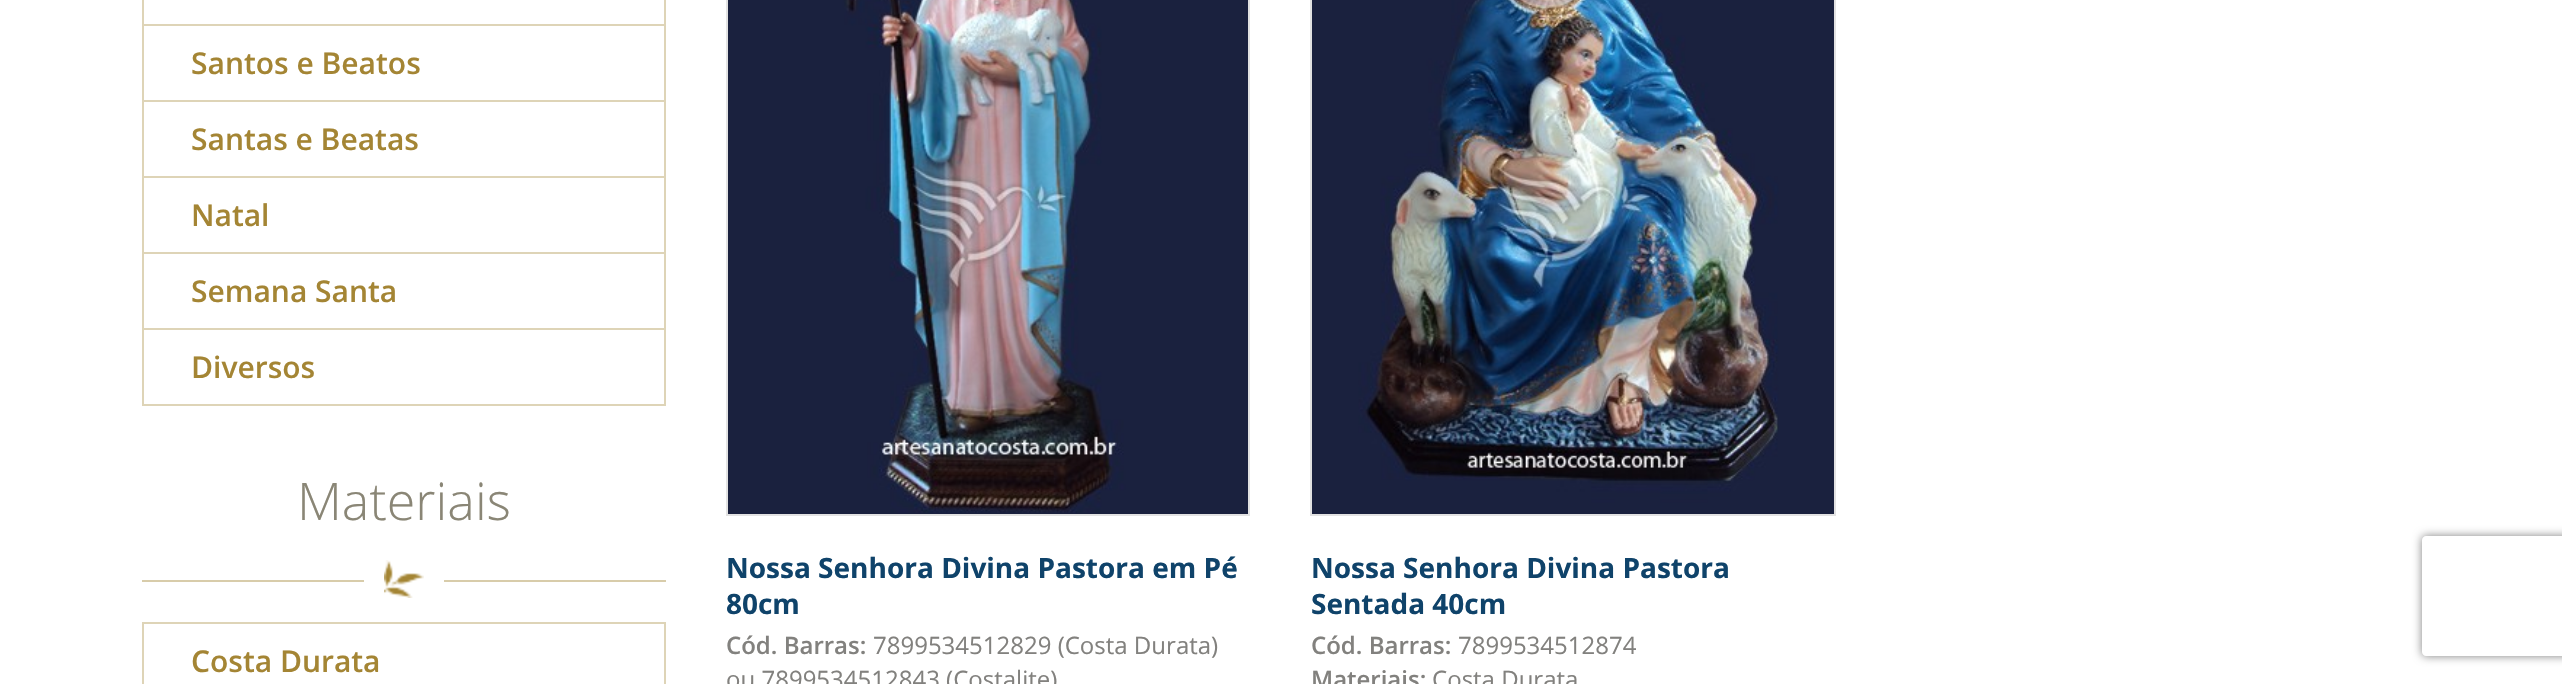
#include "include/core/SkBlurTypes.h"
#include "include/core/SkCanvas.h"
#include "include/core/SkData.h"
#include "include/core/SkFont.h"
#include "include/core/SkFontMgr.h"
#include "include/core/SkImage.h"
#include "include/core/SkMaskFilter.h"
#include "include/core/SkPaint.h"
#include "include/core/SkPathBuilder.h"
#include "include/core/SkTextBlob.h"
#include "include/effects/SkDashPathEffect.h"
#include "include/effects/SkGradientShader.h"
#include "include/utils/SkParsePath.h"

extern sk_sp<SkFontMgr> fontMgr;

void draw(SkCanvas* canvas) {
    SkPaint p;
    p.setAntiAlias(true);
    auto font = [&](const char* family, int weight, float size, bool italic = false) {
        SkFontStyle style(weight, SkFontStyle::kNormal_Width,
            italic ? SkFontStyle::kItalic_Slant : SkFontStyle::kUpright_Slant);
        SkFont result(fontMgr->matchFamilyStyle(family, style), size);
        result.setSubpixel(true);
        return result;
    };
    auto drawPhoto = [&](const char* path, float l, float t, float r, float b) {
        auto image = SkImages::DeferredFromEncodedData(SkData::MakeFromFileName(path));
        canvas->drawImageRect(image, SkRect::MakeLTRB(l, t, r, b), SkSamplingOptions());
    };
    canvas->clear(0xFFFFFFFF);
    {
        const struct { float l, t, r, b; SkColor color; } items[] = {
            {664, 0, 666, 406, 0xFFDED4B7},
            {142, 24, 666, 26, 0xFFDED4B7},
            {142, 0, 144, 26, 0xFFDED4B7},
            {142, 100, 666, 102, 0xFFDED4B7},
            {142, 26, 144, 102, 0xFFDED4B7},
        };
        for (auto [l, t, r, b, color] : items) {
            p.setColor(color);
            canvas->drawRect(SkRect::MakeLTRB(l, t, r, b), p);
        }
    }
    auto font1 = font("Open Sans", 600, 30);
    p.setColor(0xFFA48534);
    canvas->drawString("Santos e Beatos", 191, 74, font1, p);
    p.setColor(0xFFDED4B7);
    canvas->drawRect(SkRect::MakeLTRB(142, 176, 666, 178), p);
    canvas->drawRect(SkRect::MakeLTRB(142, 102, 144, 178), p);
    p.setColor(0xFFA48534);
    canvas->drawString("Santas e Beatas", 191, 150, font1, p);
    p.setColor(0xFFDED4B7);
    canvas->drawRect(SkRect::MakeLTRB(142, 252, 666, 254), p);
    canvas->drawRect(SkRect::MakeLTRB(142, 178, 144, 254), p);
    p.setColor(0xFFA48534);
    canvas->drawString("Natal", 191, 226, font1, p);
    p.setColor(0xFFDED4B7);
    canvas->drawRect(SkRect::MakeLTRB(142, 328, 666, 330), p);
    canvas->drawRect(SkRect::MakeLTRB(142, 254, 144, 330), p);
    p.setColor(0xFFA48534);
    canvas->drawString("Semana Santa", 191, 302, font1, p);
    p.setColor(0xFFDED4B7);
    canvas->drawRect(SkRect::MakeLTRB(142, 404, 666, 406), p);
    canvas->drawRect(SkRect::MakeLTRB(142, 330, 144, 406), p);
    p.setColor(0xFFA48534);
    canvas->drawString("Diversos", 191, 378, font1, p);
    p.setColor(0xFFD8CCAA);
    canvas->drawRect(SkRect::MakeLTRB(142, 580, 666, 582), p);
    auto font2 = font("Open Sans", 300, 52);
    p.setColor(0xFF8A8676);
    canvas->drawString("Materiais", 297, 520, font2, p);
    p.setColor(0xFFFFFFFF);
    canvas->drawRect(SkRect::MakeLTRB(364, 580, 444, 582), p);
    drawPhoto("media/1.png", 384, 560, 424, 598);
    p.setStyle(SkPaint::kStroke_Style);
    p.setStrokeWidth(2);
    p.setColor(0xFFDED4B7);
    canvas->drawRect(SkRect::MakeLTRB(143, 623, 665, 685), p);
    p.setStyle(SkPaint::kFill_Style);
    p.setColor(0xFFA48534);
    canvas->drawString("Costa Durata", 191, 672, font1, p);
    drawPhoto("media/2.png", 728, 0, 1248, 514);
    p.setStyle(SkPaint::kStroke_Style);
    p.setColor(0xFFE2E2E2);
    canvas->drawRect(SkRect::MakeLTRB(727, -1, 1249, 515), p);
    auto font3 = font("Open Sans", 700, 28);
    p.setStyle(SkPaint::kFill_Style);
    p.setColor(0xFF0F436A);
    canvas->drawString("Nossa Senhora Divina Pastora em Pé", 726, 578, font3, p);
    canvas->drawString("80cm", 726, 614, font3, p);
    auto font4 = font("Open Sans", 600, 24);
    p.setColor(0xFF82817E);
    canvas->drawString("Cód. Barras:", 726, 654, font4, p);
    auto font5 = font("Open Sans", 400, 24);
    canvas->drawString("7899534512829 (Costa Durata)", 873, 654, font5, p);
    canvas->drawString("ou 7899534512843 (Costalite)", 726, 688, font5, p);
    drawPhoto("media/3.png", 1312, 0, 1834, 514);
    p.setStyle(SkPaint::kStroke_Style);
    p.setColor(0xFFE2E2E2);
    canvas->drawRect(SkRect::MakeLTRB(1311, -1, 1835, 515), p);
    p.setStyle(SkPaint::kFill_Style);
    p.setColor(0xFF0F436A);
    canvas->drawString("Nossa Senhora Divina Pastora", 1311, 578, font3, p);
    canvas->drawString("Sentada 40cm", 1311, 614, font3, p);
    p.setColor(0xFF82817E);
    canvas->drawString("Cód. Barras:", 1311, 654, font4, p);
    canvas->drawString("7899534512874", 1458, 654, font5, p);
    canvas->drawString("Materiais:", 1311, 688, font4, p);
    canvas->drawString("Costa Durata", 1432, 688, font5, p);
    canvas->save();
    canvas->clipPath(SkPathBuilder(SkPathFillType::kEvenOdd).moveTo(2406, 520).lineTo(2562, 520).lineTo(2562, 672).lineTo(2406, 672).close().moveTo(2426, 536).lineTo(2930, 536).cubicTo(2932, 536, 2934, 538, 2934, 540).lineTo(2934, 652).cubicTo(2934, 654, 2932, 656, 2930, 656).lineTo(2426, 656).cubicTo(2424, 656, 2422, 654, 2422, 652).lineTo(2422, 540).cubicTo(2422, 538, 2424, 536, 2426, 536).close().detach(), true);
    p.setColor(0xFF808080);
    p.setMaskFilter(SkMaskFilter::MakeBlur(kNormal_SkBlurStyle, 5));
    canvas->drawRoundRect(SkRect::MakeLTRB(2422, 536, 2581, 656), 4, 4, p);
    p.setMaskFilter(nullptr);
    canvas->restore();
}
